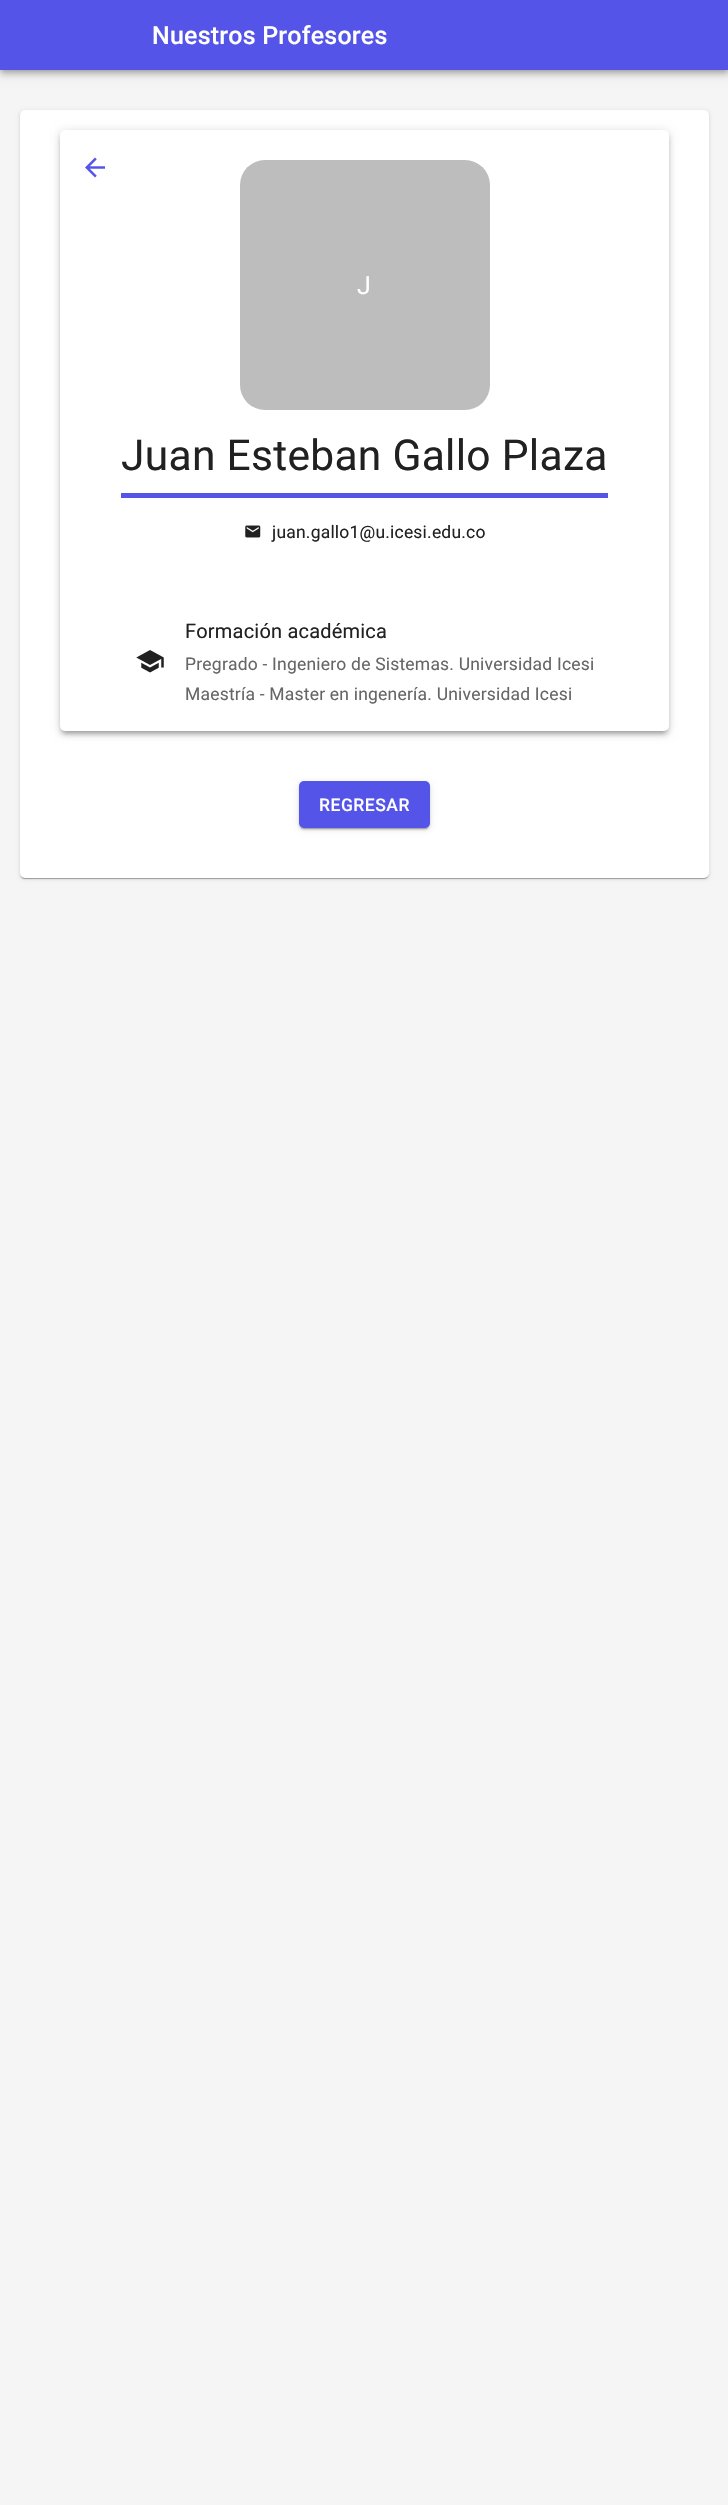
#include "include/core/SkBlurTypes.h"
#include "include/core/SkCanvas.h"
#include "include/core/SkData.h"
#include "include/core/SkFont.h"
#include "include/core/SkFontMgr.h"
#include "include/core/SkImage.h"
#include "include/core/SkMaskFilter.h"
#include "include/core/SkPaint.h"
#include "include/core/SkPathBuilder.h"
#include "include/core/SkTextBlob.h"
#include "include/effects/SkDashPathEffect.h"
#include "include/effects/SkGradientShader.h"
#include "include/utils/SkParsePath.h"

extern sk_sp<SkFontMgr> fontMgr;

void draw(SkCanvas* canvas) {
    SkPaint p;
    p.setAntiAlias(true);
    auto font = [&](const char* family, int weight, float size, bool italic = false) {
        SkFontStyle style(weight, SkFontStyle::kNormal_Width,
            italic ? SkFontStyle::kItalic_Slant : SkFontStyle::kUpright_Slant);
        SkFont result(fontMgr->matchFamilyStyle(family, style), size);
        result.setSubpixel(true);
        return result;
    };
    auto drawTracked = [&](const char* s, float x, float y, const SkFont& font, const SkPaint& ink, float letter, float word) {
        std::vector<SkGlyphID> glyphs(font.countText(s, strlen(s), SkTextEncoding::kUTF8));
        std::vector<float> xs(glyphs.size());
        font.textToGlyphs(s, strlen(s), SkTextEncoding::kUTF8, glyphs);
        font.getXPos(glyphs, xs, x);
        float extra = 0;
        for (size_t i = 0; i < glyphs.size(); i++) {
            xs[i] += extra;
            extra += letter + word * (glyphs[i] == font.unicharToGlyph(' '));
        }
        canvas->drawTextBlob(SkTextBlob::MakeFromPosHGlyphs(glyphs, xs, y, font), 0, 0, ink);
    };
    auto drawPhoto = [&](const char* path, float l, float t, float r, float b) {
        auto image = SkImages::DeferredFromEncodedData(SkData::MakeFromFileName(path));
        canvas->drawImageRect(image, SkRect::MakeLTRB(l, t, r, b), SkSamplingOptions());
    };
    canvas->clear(0xFFF5F5F5);
    p.setColor(0x1F000000);
    p.setMaskFilter(SkMaskFilter::MakeBlur(kNormal_SkBlurStyle, 6));
    canvas->drawRect(SkRect::MakeLTRB(0, 1, 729, 71), p);
    p.setMaskFilter(nullptr);
    p.setColor(0x24000000);
    p.setMaskFilter(SkMaskFilter::MakeBlur(kNormal_SkBlurStyle, 3));
    canvas->drawRect(SkRect::MakeLTRB(0, 5, 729, 75), p);
    p.setMaskFilter(nullptr);
    p.setColor(0x33000000);
    p.setMaskFilter(SkMaskFilter::MakeBlur(kNormal_SkBlurStyle, 2.5f));
    canvas->drawRect(SkRect::MakeLTRB(1, 4, 728, 71), p);
    p.setMaskFilter(nullptr);
    p.setColor(0xFF5454E9);
    canvas->drawRect(SkRect::MakeLTRB(0, 0, 728, 70), p);
    auto font1 = font("Roboto", 500, 25);
    p.setColor(0xFFFFFFFF);
    drawTracked("Nuestros Profesores", 152, 44, font1, p, 0.2f, 0);
    p.setColor(0x1F000000);
    p.setMaskFilter(SkMaskFilter::MakeBlur(kNormal_SkBlurStyle, 2));
    canvas->drawRoundRect(SkRect::MakeLTRB(20, 111, 709, 879), 5, 5, p);
    p.setMaskFilter(nullptr);
    p.setColor(0x24000000);
    p.setMaskFilter(SkMaskFilter::MakeBlur(kNormal_SkBlurStyle, 0.5f));
    canvas->drawRoundRect(SkRect::MakeLTRB(20, 111, 709, 879), 5, 5, p);
    p.setMaskFilter(nullptr);
    p.setColor(0x33000000);
    p.setMaskFilter(SkMaskFilter::MakeBlur(kNormal_SkBlurStyle, 0.5f));
    canvas->drawRoundRect(SkRect::MakeLTRB(21, 114, 708, 879), 4, 4, p);
    p.setMaskFilter(nullptr);
    p.setColor(0xFFFFFFFF);
    canvas->drawRoundRect(SkRect::MakeLTRB(20, 110, 709, 878), 5, 5, p);
    p.setColor(0x1F000000);
    p.setMaskFilter(SkMaskFilter::MakeBlur(kNormal_SkBlurStyle, 5));
    canvas->drawRoundRect(SkRect::MakeLTRB(60, 131, 669, 733), 5, 5, p);
    p.setMaskFilter(nullptr);
    p.setColor(0x24000000);
    p.setMaskFilter(SkMaskFilter::MakeBlur(kNormal_SkBlurStyle, 2.5f));
    canvas->drawRoundRect(SkRect::MakeLTRB(60, 134, 669, 735), 5, 5, p);
    p.setMaskFilter(nullptr);
    p.setColor(0x33000000);
    p.setMaskFilter(SkMaskFilter::MakeBlur(kNormal_SkBlurStyle, 2));
    canvas->drawRoundRect(SkRect::MakeLTRB(63, 136, 666, 733), 2.5f, 2.5f, p);
    p.setMaskFilter(nullptr);
    p.setColor(0xFFFFFFFF);
    canvas->drawRoundRect(SkRect::MakeLTRB(60, 130, 669, 731), 5, 5, p);
    drawPhoto("media/1.png", 85, 157, 105, 178);
    p.setColor(0xFFBDBDBD);
    canvas->drawRoundRect(SkRect::MakeLTRB(240, 160, 490, 410), 25, 25, p);
    auto font2 = font("Roboto", 400, 25);
    p.setColor(0xFFFFFFFF);
    drawTracked("J", 357, 294, font2, p, 0.2f, 0);
    auto font3 = font("Roboto", 400, 42.5f);
    p.setColor(0xFF212121);
    drawTracked("Juan Esteban Gallo Plaza", 121, 470, font3, p, 0.3f, 0);
    p.setColor(0xFF5454E9);
    canvas->drawRect(SkRect::MakeLTRB(121, 493, 608, 498), p);
    drawPhoto("media/2.png", 245, 525, 261, 538);
    auto font4 = font("Roboto", 400, 17.5f);
    p.setColor(0xFF212121);
    drawTracked("juan.gallo1@u.icesi.edu.co", 272, 538, font4, p, 0.2f, 0);
    drawPhoto("media/3.png", 136, 650, 164, 673);
    auto font5 = font("Roboto", 400, 20);
    drawTracked("Formación académica", 185, 638, font5, p, 0.2f, 0);
    p.setColor(0xFF666666);
    drawTracked("Pregrado - Ingeniero de Sistemas. Universidad Icesi", 185, 670, font4, p, 0.2f, 0);
    drawTracked("Maestría - Master en ingenería. Universidad Icesi", 185, 700, font4, p, 0.2f, 0);
    p.setColor(0x1F000000);
    p.setMaskFilter(SkMaskFilter::MakeBlur(kNormal_SkBlurStyle, 3));
    canvas->drawRoundRect(SkRect::MakeLTRB(299, 783, 430, 829), 5, 5, p);
    p.setMaskFilter(nullptr);
    p.setColor(0x24000000);
    p.setMaskFilter(SkMaskFilter::MakeBlur(kNormal_SkBlurStyle, 1));
    canvas->drawRoundRect(SkRect::MakeLTRB(299, 784, 430, 830), 5, 5, p);
    p.setMaskFilter(nullptr);
    p.setColor(0x33000000);
    p.setMaskFilter(SkMaskFilter::MakeBlur(kNormal_SkBlurStyle, 0.5f));
    canvas->drawRoundRect(SkRect::MakeLTRB(301, 788, 428, 829), 2.5f, 2.5f, p);
    p.setMaskFilter(nullptr);
    p.setColor(0xFF5454E9);
    canvas->drawRoundRect(SkRect::MakeLTRB(299, 781, 430, 828), 5, 5, p);
    auto font6 = font("Roboto", 500, 17.5f);
    p.setColor(0xFFFFFFFF);
    drawTracked("REGRESAR", 319, 811, font6, p, 0.5f, 0);
}
